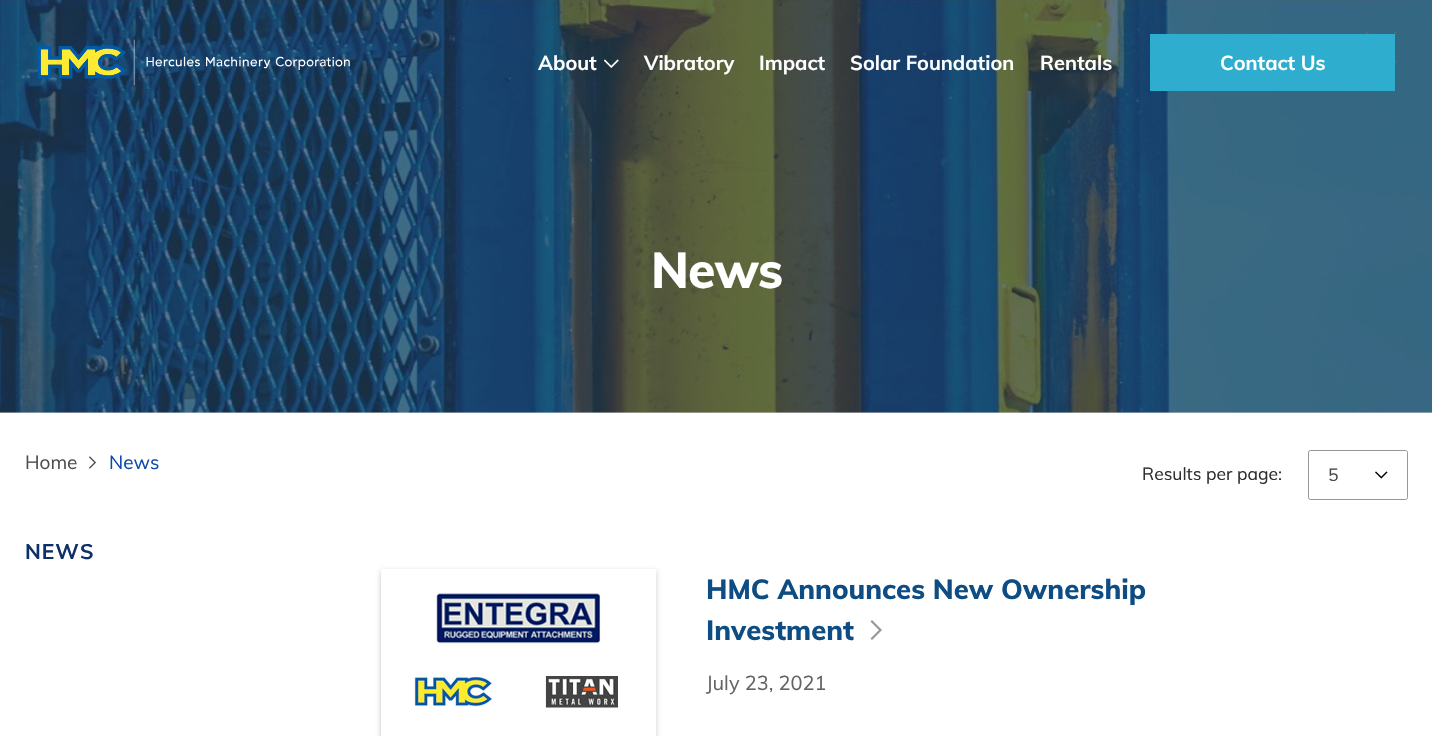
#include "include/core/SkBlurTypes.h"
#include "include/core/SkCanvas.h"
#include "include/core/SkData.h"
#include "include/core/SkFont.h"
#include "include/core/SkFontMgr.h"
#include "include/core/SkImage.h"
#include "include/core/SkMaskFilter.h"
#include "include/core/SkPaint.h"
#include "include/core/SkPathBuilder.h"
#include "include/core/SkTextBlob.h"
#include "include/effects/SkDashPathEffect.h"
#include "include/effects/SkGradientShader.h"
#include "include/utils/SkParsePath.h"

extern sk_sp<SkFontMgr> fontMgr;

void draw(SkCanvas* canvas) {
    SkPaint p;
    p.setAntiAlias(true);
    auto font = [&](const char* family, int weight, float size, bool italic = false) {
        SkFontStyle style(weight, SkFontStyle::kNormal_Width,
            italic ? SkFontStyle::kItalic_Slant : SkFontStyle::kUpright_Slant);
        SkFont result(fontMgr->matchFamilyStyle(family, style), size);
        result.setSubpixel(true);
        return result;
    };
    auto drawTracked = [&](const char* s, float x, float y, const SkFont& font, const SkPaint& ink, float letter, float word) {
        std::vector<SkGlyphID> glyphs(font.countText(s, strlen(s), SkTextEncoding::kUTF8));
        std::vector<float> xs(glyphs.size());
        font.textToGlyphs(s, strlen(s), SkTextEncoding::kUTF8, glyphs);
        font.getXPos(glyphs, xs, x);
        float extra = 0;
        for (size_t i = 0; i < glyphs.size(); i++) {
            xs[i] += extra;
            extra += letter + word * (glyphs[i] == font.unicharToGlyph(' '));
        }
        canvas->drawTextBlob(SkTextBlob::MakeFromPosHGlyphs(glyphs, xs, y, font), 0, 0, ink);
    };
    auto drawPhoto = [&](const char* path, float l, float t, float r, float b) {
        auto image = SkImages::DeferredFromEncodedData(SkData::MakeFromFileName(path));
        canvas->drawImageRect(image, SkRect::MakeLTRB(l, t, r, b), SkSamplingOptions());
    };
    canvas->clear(0xFFFFFFFF);
    p.setColor(0xFFD2D3D4);
    canvas->drawRect(SkRect::MakeLTRB(0, 412, 1432, 413), p);
    drawPhoto("media/3.png", 0, 0, 1432, 413);
    drawPhoto("media/1.png", 38, 39, 350, 85);
    auto font1 = font("Muli", 700, 20);
    p.setColor(0xFFFFFFFF);
    canvas->drawString("About", 538, 70, font1, p);
    drawPhoto("media/2.png", 604, 59, 619, 68);
    {
        const struct { const char* s; float x, y; } items[] = {
            {"Vibratory", 644, 70},
            {"Impact", 759, 70},
            {"Solar Foundation", 850, 70},
            {"Rentals", 1040, 70},
        };
        for (auto [s, x, y] : items) {
            canvas->drawString(s, x, y, font1, p);
        }
    }
    drawPhoto("media/6.png", 1366, 32, 1397, 63);
    p.setColor(0xFF2FADCE);
    canvas->drawRect(SkRect::MakeLTRB(1150, 34, 1395, 91), p);
    p.setColor(0xFFFFFFFF);
    canvas->drawString("Contact Us", 1220, 70, font1, p);
    auto font2 = font("Muli", 800, 50);
    drawTracked("News", 651, 288, font2, p, -1, 0);
    auto font3 = font("Muli", 400, 19);
    p.setColor(0xFF4E4E4E);
    canvas->drawString("Home", 25, 469, font3, p);
    drawPhoto("media/4.png", 89, 456, 96, 469);
    p.setColor(0xFF0D49AD);
    canvas->drawString("News", 109, 469, font3, p);
    auto font4 = font("Muli", 400, 17.5f);
    p.setColor(0xFF2E2E2E);
    canvas->drawString("Results per page:", 1142, 480, font4, p);
    drawPhoto("media/5.png", 1375, 471, 1388, 479);
    p.setStyle(SkPaint::kStroke_Style);
    p.setStrokeWidth(1);
    p.setColor(0xFF95989A);
    canvas->drawRoundRect(SkRect::MakeLTRB(1308.5f, 450.5f, 1407.5f, 499.5f), 2, 2, p);
    p.setStyle(SkPaint::kFill_Style);
    p.setColor(0xFF484848);
    canvas->drawString("5", 1328, 481, font4, p);
    auto font5 = font("Muli", 700, 21);
    p.setColor(0xFF0E3069);
    drawTracked("NEWS", 25, 559, font5, p, 1, 0);
    canvas->save();
    canvas->clipPath(SkPathBuilder(SkPathFillType::kEvenOdd).moveTo(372, 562).lineTo(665, 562).lineTo(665, 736).lineTo(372, 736).close().moveTo(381, 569).lineTo(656, 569).lineTo(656, 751).lineTo(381, 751).close().detach(), true);
    p.setColor(0x3B000000);
    p.setMaskFilter(SkMaskFilter::MakeBlur(kNormal_SkBlurStyle, 2.5f));
    canvas->drawRect(SkRect::MakeLTRB(381, 571, 656, 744), p);
    p.setMaskFilter(nullptr);
    canvas->restore();
    drawPhoto("media/7.png", 381, 572, 657, 736);
    auto font6 = font("Muli", 800, 27.5f);
    p.setColor(0xFF0D4D83);
    canvas->drawString("HMC Announces New Ownership", 706, 599, font6, p);
    canvas->drawString("Investment", 706, 640, font6, p);
    p.setColor(0xFF959595);
    canvas->drawPath(SkPathBuilder().moveTo(870.5f, 638.5f).lineTo(879, 630).lineTo(870.5f, 621.5f).lineTo(872, 620).lineTo(882, 630).lineTo(872, 640).close().detach(), p);
    auto font7 = font("Muli", 400, 20);
    p.setColor(0xFF636363);
    canvas->drawString("July 23, 2021", 706, 690, font7, p);
}
